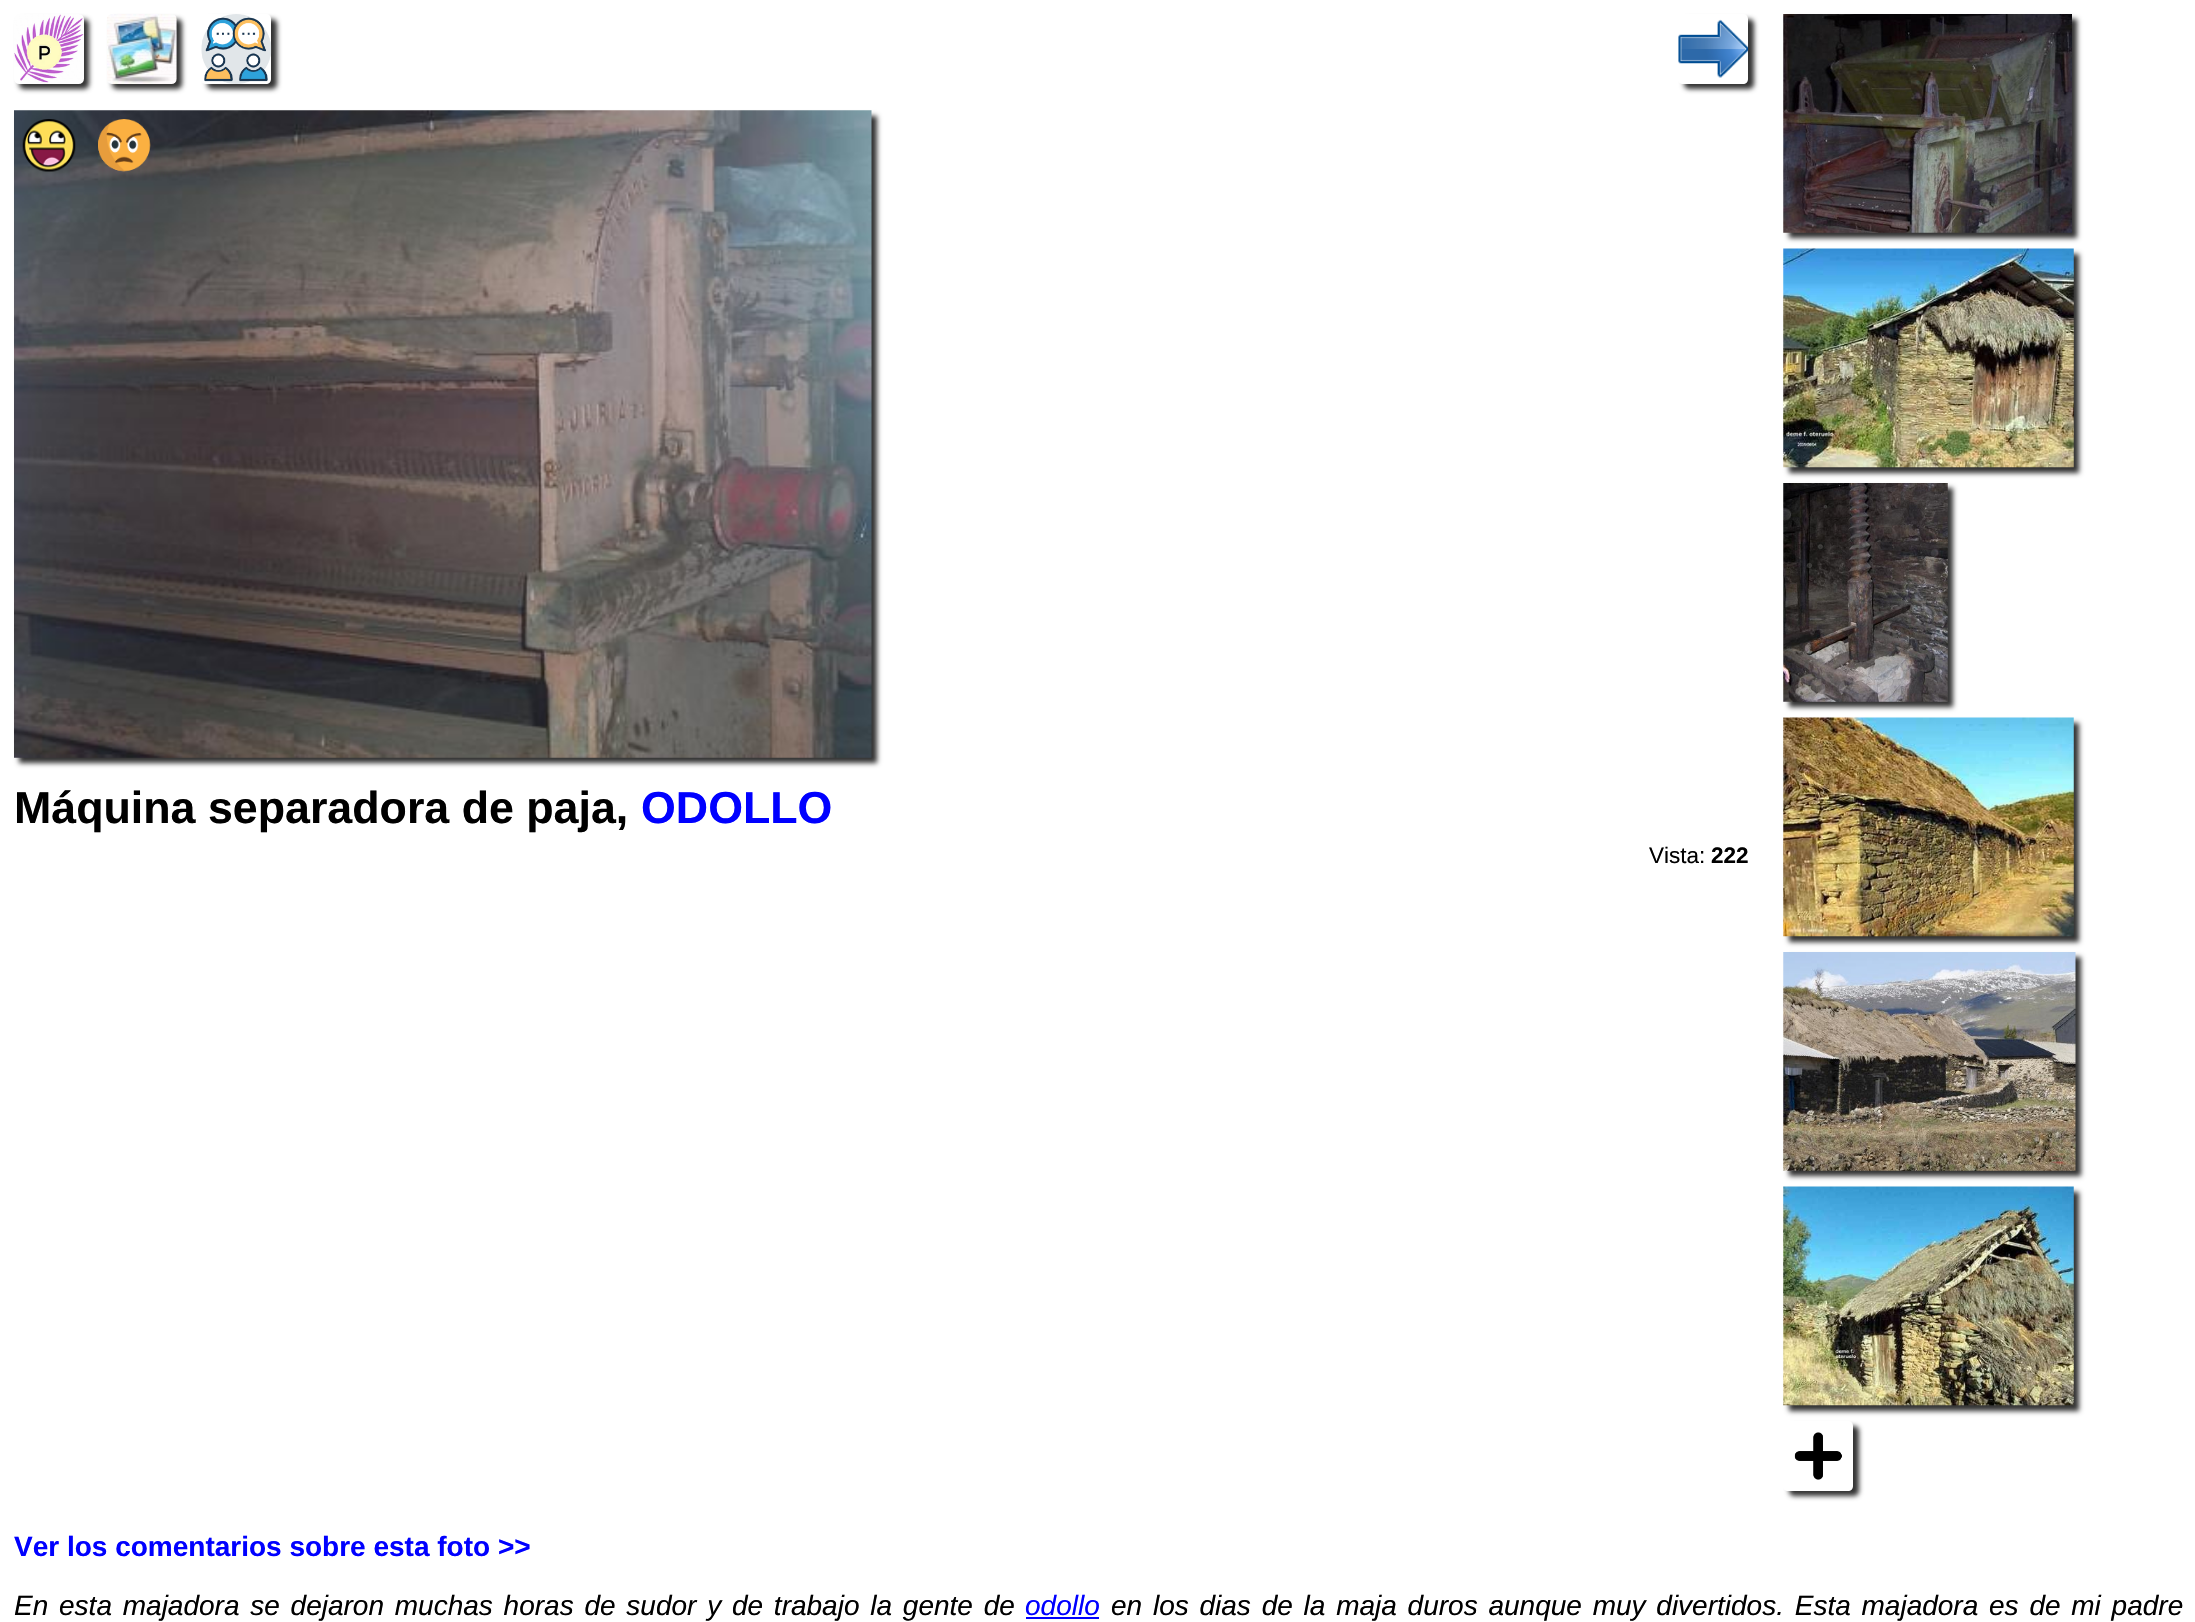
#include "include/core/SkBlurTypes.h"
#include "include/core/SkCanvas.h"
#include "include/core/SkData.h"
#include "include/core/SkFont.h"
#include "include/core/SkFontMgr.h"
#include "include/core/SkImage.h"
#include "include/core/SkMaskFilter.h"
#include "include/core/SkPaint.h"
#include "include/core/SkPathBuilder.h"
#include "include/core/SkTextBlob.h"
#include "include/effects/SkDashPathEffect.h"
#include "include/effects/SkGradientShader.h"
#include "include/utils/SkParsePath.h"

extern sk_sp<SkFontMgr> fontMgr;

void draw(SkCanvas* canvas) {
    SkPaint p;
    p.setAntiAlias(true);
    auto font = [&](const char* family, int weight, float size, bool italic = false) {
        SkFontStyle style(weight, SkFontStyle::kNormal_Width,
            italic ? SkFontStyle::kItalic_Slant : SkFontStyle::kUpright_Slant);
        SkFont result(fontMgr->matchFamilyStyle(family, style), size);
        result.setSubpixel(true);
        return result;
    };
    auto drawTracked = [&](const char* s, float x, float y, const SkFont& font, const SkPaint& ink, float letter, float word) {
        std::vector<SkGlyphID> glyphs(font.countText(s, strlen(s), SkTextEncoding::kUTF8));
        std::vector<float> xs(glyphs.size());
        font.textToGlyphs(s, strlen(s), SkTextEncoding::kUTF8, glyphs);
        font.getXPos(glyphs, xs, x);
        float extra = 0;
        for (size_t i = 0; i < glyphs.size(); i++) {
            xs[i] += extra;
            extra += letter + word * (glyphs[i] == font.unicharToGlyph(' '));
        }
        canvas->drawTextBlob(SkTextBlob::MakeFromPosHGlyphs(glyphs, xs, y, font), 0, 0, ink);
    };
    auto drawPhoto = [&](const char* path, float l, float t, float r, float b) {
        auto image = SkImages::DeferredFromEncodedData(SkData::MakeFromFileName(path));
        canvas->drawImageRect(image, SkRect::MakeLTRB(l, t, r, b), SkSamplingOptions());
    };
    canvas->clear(0xFFFFFFFF);
    p.setColor(0xFF333333);
    p.setMaskFilter(SkMaskFilter::MakeBlur(kNormal_SkBlurStyle, 2.5f));
    canvas->drawRoundRect(SkRect::MakeLTRB(19, 19, 89, 89), 5, 5, p);
    p.setMaskFilter(nullptr);
    p.setMaskFilter(SkMaskFilter::MakeBlur(kNormal_SkBlurStyle, 2.5f));
    canvas->drawRoundRect(SkRect::MakeLTRB(112, 19, 182, 89), 5, 5, p);
    p.setMaskFilter(nullptr);
    canvas->save();
    canvas->clipPath(SkPathBuilder(SkPathFillType::kEvenOdd).moveTo(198, 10).lineTo(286, 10).lineTo(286, 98).lineTo(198, 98).close().moveTo(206, 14).lineTo(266, 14).cubicTo(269, 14, 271, 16, 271, 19).lineTo(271, 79).cubicTo(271, 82, 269, 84, 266, 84).lineTo(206, 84).cubicTo(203, 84, 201, 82, 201, 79).lineTo(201, 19).cubicTo(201, 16, 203, 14, 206, 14).close().detach(), true);
    p.setMaskFilter(SkMaskFilter::MakeBlur(kNormal_SkBlurStyle, 2.5f));
    canvas->drawRoundRect(SkRect::MakeLTRB(207, 19, 277, 89), 5, 5, p);
    p.setMaskFilter(nullptr);
    canvas->restore();
    drawPhoto("media/1.png", 14, 14, 84, 84);
    drawPhoto("media/2.png", 107, 14, 177, 84);
    drawPhoto("media/3.png", 201, 14, 272, 84);
    canvas->save();
    canvas->clipPath(SkPathBuilder(SkPathFillType::kEvenOdd).moveTo(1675, 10).lineTo(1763, 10).lineTo(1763, 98).lineTo(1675, 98).close().moveTo(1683, 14).lineTo(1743, 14).cubicTo(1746, 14, 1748, 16, 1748, 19).lineTo(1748, 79).cubicTo(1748, 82, 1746, 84, 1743, 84).lineTo(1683, 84).cubicTo(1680, 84, 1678, 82, 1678, 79).lineTo(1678, 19).cubicTo(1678, 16, 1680, 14, 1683, 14).close().detach(), true);
    p.setMaskFilter(SkMaskFilter::MakeBlur(kNormal_SkBlurStyle, 2.5f));
    canvas->drawRoundRect(SkRect::MakeLTRB(1684, 19, 1754, 89), 5, 5, p);
    p.setMaskFilter(nullptr);
    canvas->restore();
    drawPhoto("media/4.png", 1678, 19, 1749, 78);
    p.setMaskFilter(SkMaskFilter::MakeBlur(kNormal_SkBlurStyle, 2.5f));
    canvas->drawRect(SkRect::MakeLTRB(19, 116, 877, 763), p);
    p.setMaskFilter(nullptr);
    drawPhoto("media/5.png", 14, 110, 872, 758);
    drawPhoto("media/6.png", 22, 119, 76, 172);
    drawPhoto("media/7.png", 98, 119, 151, 172);
    auto font1 = font("Liberation Sans", 700, 44.75f);
    p.setColor(0xFF000000);
    canvas->drawString("Máquina separadora de paja,", 14, 823, font1, p);
    p.setColor(0xFF0000FF);
    canvas->drawString("ODOLLO", 641, 823, font1, p);
    auto font2 = font("Liberation Sans", 400, 22.5f);
    p.setColor(0xFF000000);
    canvas->drawString("Vista:", 1649, 863, font2, p);
    auto font3 = font("Liberation Sans", 700, 22.5f);
    canvas->drawString("222", 1711, 863, font3, p);
    p.setColor(0xFF333333);
    p.setMaskFilter(SkMaskFilter::MakeBlur(kNormal_SkBlurStyle, 2.5f));
    canvas->drawRect(SkRect::MakeLTRB(1789, 19, 2077, 238), p);
    p.setMaskFilter(nullptr);
    drawPhoto("media/8.png", 1783, 14, 2072, 233);
    p.setMaskFilter(SkMaskFilter::MakeBlur(kNormal_SkBlurStyle, 2.5f));
    canvas->drawRect(SkRect::MakeLTRB(1789, 254, 2079, 473), p);
    p.setMaskFilter(nullptr);
    drawPhoto("media/9.png", 1783, 248, 2074, 468);
    p.setMaskFilter(SkMaskFilter::MakeBlur(kNormal_SkBlurStyle, 2.5f));
    canvas->drawRect(SkRect::MakeLTRB(1789, 488, 1953, 707), p);
    p.setMaskFilter(nullptr);
    drawPhoto("media/10.png", 1783, 483, 1948, 702);
    p.setMaskFilter(SkMaskFilter::MakeBlur(kNormal_SkBlurStyle, 2.5f));
    canvas->drawRect(SkRect::MakeLTRB(1789, 723, 2079, 942), p);
    p.setMaskFilter(nullptr);
    drawPhoto("media/11.png", 1783, 717, 2074, 937);
    p.setMaskFilter(SkMaskFilter::MakeBlur(kNormal_SkBlurStyle, 2.5f));
    canvas->drawRect(SkRect::MakeLTRB(1789, 957, 2081, 1176), p);
    p.setMaskFilter(nullptr);
    drawPhoto("media/12.png", 1783, 952, 2076, 1171);
    p.setMaskFilter(SkMaskFilter::MakeBlur(kNormal_SkBlurStyle, 2.5f));
    canvas->drawRect(SkRect::MakeLTRB(1789, 1192, 2079, 1411), p);
    p.setMaskFilter(nullptr);
    drawPhoto("media/13.png", 1783, 1186, 2074, 1406);
    canvas->save();
    canvas->clipPath(SkPathBuilder(SkPathFillType::kEvenOdd).moveTo(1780, 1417).lineTo(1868, 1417).lineTo(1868, 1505).lineTo(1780, 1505).close().moveTo(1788, 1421).lineTo(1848, 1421).cubicTo(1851, 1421, 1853, 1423, 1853, 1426).lineTo(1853, 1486).cubicTo(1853, 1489, 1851, 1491, 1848, 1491).lineTo(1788, 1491).cubicTo(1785, 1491, 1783, 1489, 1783, 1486).lineTo(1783, 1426).cubicTo(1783, 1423, 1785, 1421, 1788, 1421).close().detach(), true);
    p.setMaskFilter(SkMaskFilter::MakeBlur(kNormal_SkBlurStyle, 2.5f));
    canvas->drawRoundRect(SkRect::MakeLTRB(1789, 1426, 1859, 1496), 5, 5, p);
    p.setMaskFilter(nullptr);
    canvas->restore();
    drawPhoto("media/14.png", 1794, 1432, 1842, 1480);
    auto font4 = font("Liberation Sans", 700, 28);
    p.setColor(0xFF0000FF);
    canvas->drawString("Ver los comentarios sobre esta foto >>", 14, 1556, font4, p);
    auto font5 = font("Liberation Sans", 400, 28, true);
    p.setColor(0xFF000000);
    drawTracked("En esta majadora se dejaron muchas horas de sudor y de trabajo la gente de", 14, 1615, font5, p, 0, 3);
    p.setColor(0xFF0000FF);
    canvas->drawString("odollo", 1025, 1615, font5, p);
    canvas->drawRect(SkRect::MakeLTRB(1026, 1617, 1099, 1619), p);
    p.setColor(0xFF000000);
    drawTracked("en los dias de la maja duros aunque muy divertidos. Esta majadora es de mi padre", 1111, 1615, font5, p, 0, 3);
}
